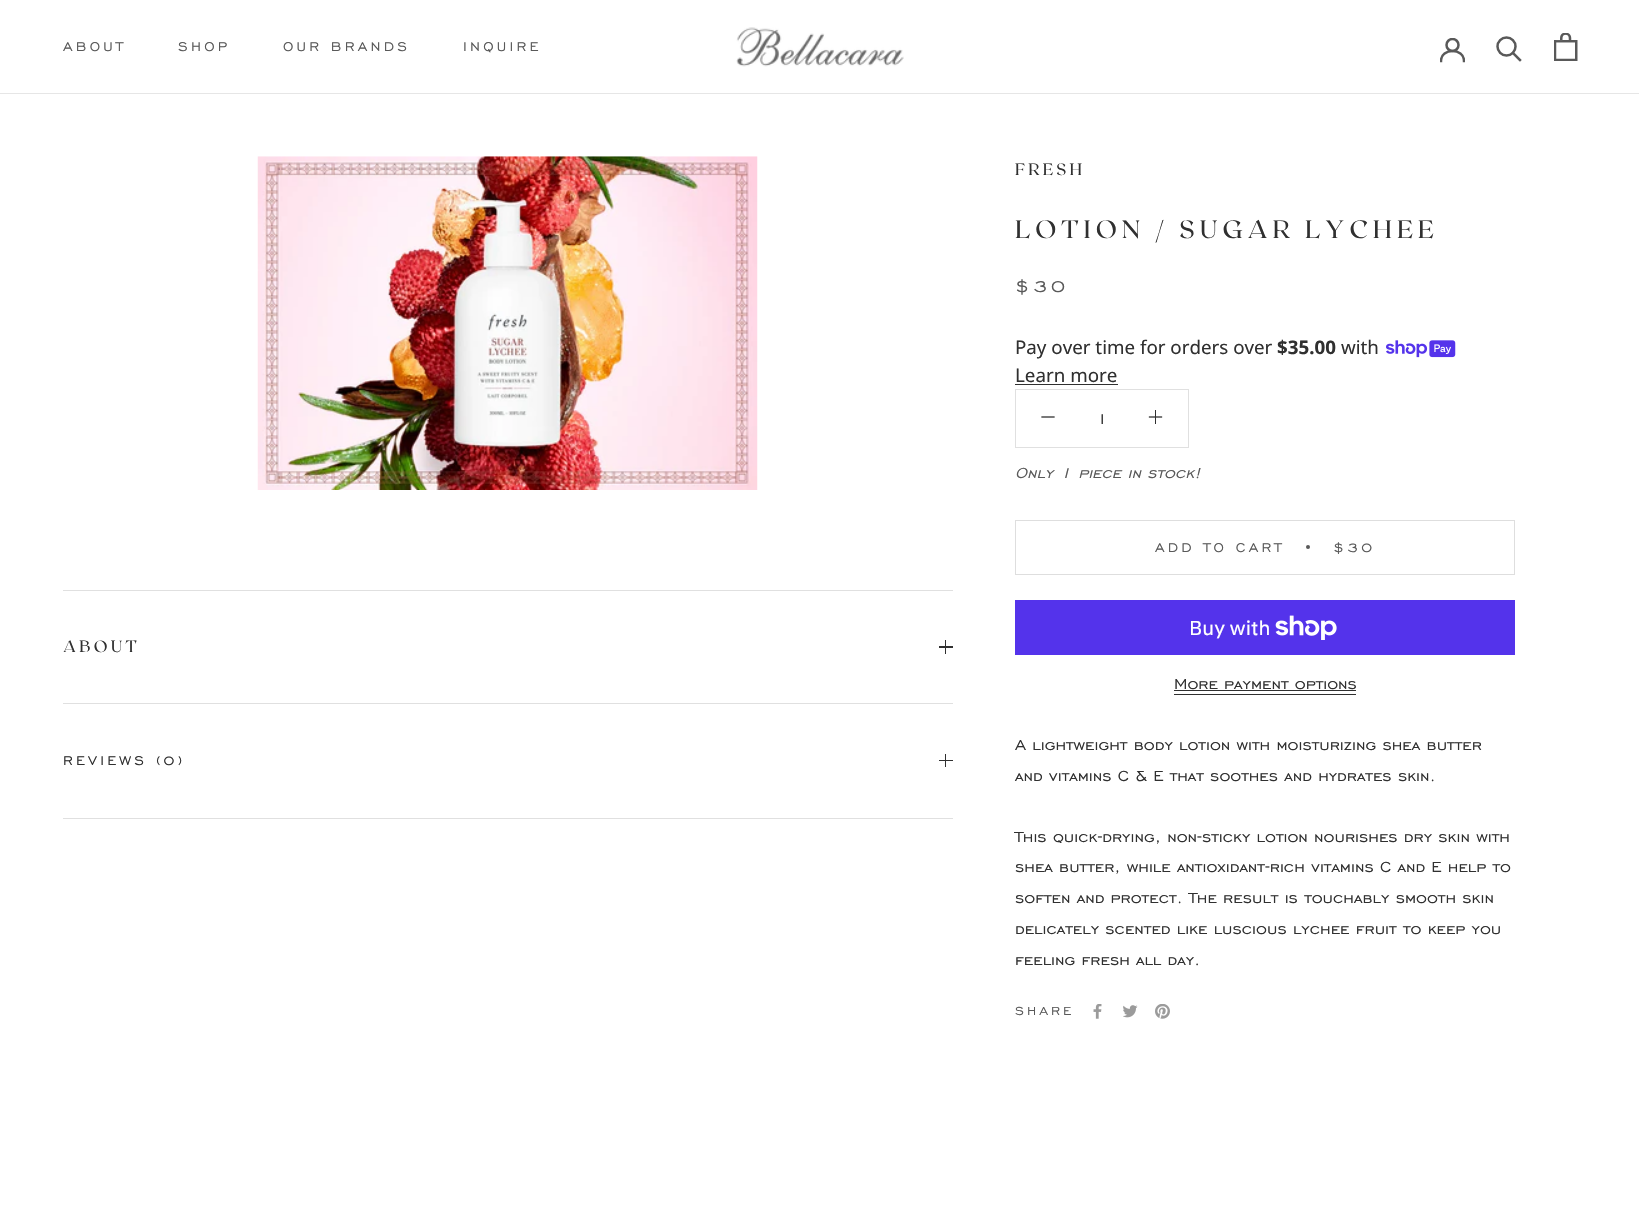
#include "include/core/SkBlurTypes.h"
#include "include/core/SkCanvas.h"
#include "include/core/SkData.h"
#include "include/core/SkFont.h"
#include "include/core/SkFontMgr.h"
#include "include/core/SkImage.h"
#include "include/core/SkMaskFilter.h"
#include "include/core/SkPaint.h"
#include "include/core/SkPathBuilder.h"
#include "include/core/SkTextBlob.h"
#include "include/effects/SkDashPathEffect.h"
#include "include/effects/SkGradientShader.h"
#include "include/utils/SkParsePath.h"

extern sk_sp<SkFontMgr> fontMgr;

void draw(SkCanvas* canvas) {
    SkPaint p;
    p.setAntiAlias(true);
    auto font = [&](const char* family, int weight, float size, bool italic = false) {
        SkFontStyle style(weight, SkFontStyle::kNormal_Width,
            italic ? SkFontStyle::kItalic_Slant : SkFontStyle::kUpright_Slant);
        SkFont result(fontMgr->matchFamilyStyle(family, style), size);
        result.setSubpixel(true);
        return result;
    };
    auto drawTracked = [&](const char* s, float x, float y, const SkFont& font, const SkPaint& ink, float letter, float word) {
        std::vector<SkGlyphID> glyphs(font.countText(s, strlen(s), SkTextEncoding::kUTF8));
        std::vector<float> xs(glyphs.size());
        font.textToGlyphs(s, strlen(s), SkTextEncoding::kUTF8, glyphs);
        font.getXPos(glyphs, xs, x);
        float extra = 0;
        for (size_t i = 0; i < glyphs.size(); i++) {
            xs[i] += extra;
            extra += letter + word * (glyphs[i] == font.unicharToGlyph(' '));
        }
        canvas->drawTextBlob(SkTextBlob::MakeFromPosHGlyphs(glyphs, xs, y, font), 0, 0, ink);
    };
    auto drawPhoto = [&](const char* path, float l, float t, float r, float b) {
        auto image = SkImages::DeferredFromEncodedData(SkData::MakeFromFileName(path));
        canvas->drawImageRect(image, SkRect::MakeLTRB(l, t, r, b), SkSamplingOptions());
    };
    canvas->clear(0xFFFFFFFF);
    p.setColor(0xFFE6E6E6);
    canvas->drawRect(SkRect::MakeLTRB(0, 93, 1639, 94), p);
    auto font1 = font("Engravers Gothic", 400, 16.25f);
    p.setColor(0xFF595959);
    {
        const struct { const char* s; float x, y; } items[] = {
            {"ABOUT", 63, 51},
            {"SHOP", 178, 51},
            {"OUR BRANDS", 283, 51},
            {"INQUIRE", 463, 51},
        };
        for (auto [s, x, y] : items) {
            drawTracked(s, x, y, font1, p, 3.25f, 0);
        }
    }
    drawPhoto("media/1.png", 736, 27, 904, 67);
    canvas->save();
    canvas->clipRect(SkRect::MakeLTRB(1440, 38, 1465, 63));
    p.setStyle(SkPaint::kStroke_Style);
    p.setStrokeWidth(2.5f);
    p.setStrokeCap(SkPaint::kSquare_Cap);
    canvas->drawPath(SkPathBuilder().moveTo(1441, 61).cubicTo(1441, 47.5f, 1464, 47.5f, 1464, 61).detach(), p);
    p.setStrokeCap(SkPaint::kButt_Cap);
    canvas->drawCircle(1452.5f, 45, 6, p);
    canvas->restore();
    p.setStrokeCap(SkPaint::kSquare_Cap);
    canvas->drawPath(SkPathBuilder().moveTo(1520, 60).lineTo(1513, 53).detach(), p);
    p.setStrokeCap(SkPaint::kButt_Cap);
    canvas->drawCircle(1506.5f, 46.5f, 9, p);
    drawPhoto("media/2.png", 1554, 33, 1578, 61);
    p.setStyle(SkPaint::kFill_Style);
    p.setColor(0xFFE0E0E0);
    canvas->drawRect(SkRect::MakeLTRB(63, 590, 953, 591), p);
    canvas->drawRect(SkRect::MakeLTRB(63, 703, 953, 704), p);
    auto font2 = font("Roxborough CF", 400, 16.25f);
    p.setColor(0xFF303030);
    drawTracked("ABOUT", 63, 652, font2, p, 3.25f, 0);
    {
        const struct { float l, t, r, b; SkColor color; } items[] = {
            {945, 640, 946, 654, 0xFF303030},
            {939, 646, 953, 648, 0xFF303030},
            {63, 818, 953, 819, 0xFFE0E0E0},
        };
        for (auto [l, t, r, b, color] : items) {
            p.setColor(color);
            canvas->drawRect(SkRect::MakeLTRB(l, t, r, b), p);
        }
    }
    p.setColor(0xFF303030);
    drawTracked("REVIEWS (0)", 63, 765, font1, p, 3.25f, 0);
    canvas->drawRect(SkRect::MakeLTRB(945, 754, 946, 767), p);
    canvas->drawRect(SkRect::MakeLTRB(939, 760, 953, 761), p);
    drawPhoto("media/3.png", 257, 156, 758, 490);
    drawTracked("FRESH", 1015, 175, font2, p, 3.25f, 0);
    auto font3 = font("Roxborough CF", 400, 25);
    drawTracked("LOTION / SUGAR LYCHEE", 1015, 238, font3, p, 5, 0);
    auto font4 = font("Engravers Gothic", 400, 21);
    p.setColor(0xFF595959);
    drawTracked("$30", 1015, 292, font4, p, 4, 0);
    auto font5 = font("Noto Sans", 400, 18.75f);
    p.setColor(0xFF303030);
    canvas->drawString("Pay over time for orders over", 1015, 354, font5, p);
    auto font6 = font("Noto Sans", 700, 18.75f);
    canvas->drawString("$35.00", 1277, 354, font6, p);
    canvas->drawString("with", 1341, 354, font5, p);
    drawPhoto("media/4.png", 1386, 340, 1456, 358);
    canvas->drawString("Learn more", 1015, 382, font5, p);
    canvas->drawRect(SkRect::MakeLTRB(1015, 384, 1118, 385), p);
    p.setStyle(SkPaint::kStroke_Style);
    p.setStrokeWidth(1);
    p.setColor(0xFFE0E0E0);
    canvas->drawRect(SkRect::MakeLTRB(1015.5f, 389.5f, 1188.5f, 447.5f), p);
    p.setStrokeWidth(1.3f);
    p.setStrokeCap(SkPaint::kSquare_Cap);
    p.setColor(0xFF303030);
    canvas->drawPath(SkPathBuilder().moveTo(1042, 417).lineTo(1054, 417).detach(), p);
    auto font7 = font("Engravers Gothic", 400, 18.75f);
    p.setStyle(SkPaint::kFill_Style);
    canvas->drawString("1", 1096, 424, font7, p);
    canvas->drawRect(SkRect::MakeLTRB(1155, 410, 1156, 424), p);
    p.setStyle(SkPaint::kStroke_Style);
    canvas->drawPath(SkPathBuilder().moveTo(1149.5f, 417).lineTo(1161.5f, 417).detach(), p);
    auto font8 = font("Engravers Gothic", 400, 18.75f, true);
    p.setStyle(SkPaint::kFill_Style);
    p.setColor(0xFF595959);
    canvas->drawString("Only 1 piece in stock!", 1015, 478, font8, p);
    p.setStyle(SkPaint::kStroke_Style);
    p.setStrokeWidth(1);
    p.setStrokeCap(SkPaint::kButt_Cap);
    p.setColor(0xFFDEDEDE);
    canvas->drawRect(SkRect::MakeLTRB(1015.5f, 520.5f, 1514.5f, 574.5f), p);
    p.setStyle(SkPaint::kFill_Style);
    p.setColor(0xFF595959);
    drawTracked("ADD TO CART", 1155, 552, font1, p, 3.25f, 0);
    canvas->drawCircle(1308, 547, 2, p);
    drawTracked("$30", 1333, 552, font1, p, 3.25f, 0);
    p.setColor(0xFF5433EB);
    canvas->drawRect(SkRect::MakeLTRB(1015, 600, 1515, 655), p);
    auto font9 = font("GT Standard", 400, 20);
    p.setColor(0xFFFFFFFF);
    canvas->drawString("Buy with", 1189, 635, font9, p);
    drawPhoto("media/5.png", 1275, 615, 1337, 640);
    p.setColor(0xFF303030);
    canvas->drawString("More payment options", 1174, 689, font7, p);
    canvas->drawRect(SkRect::MakeLTRB(1174, 690, 1356, 691), p);
    canvas->drawRect(SkRect::MakeLTRB(1174, 694, 1356, 695), p);
    {
        const struct { const char* s; float x, y; } items[] = {
            {"A lightweight body lotion with moisturizing shea butter", 1015, 750},
            {"and vitamins C & E that soothes and hydrates skin.", 1015, 781},
            {"This quick-drying, non-sticky lotion nourishes dry skin with", 1015, 842},
            {"shea butter, while antioxidant-rich vitamins C and E help to", 1015, 872},
            {"soften and protect. The result is touchably smooth skin", 1015, 903},
            {"delicately scented like luscious lychee fruit to keep you", 1015, 934},
            {"feeling fresh all day.", 1015, 965},
        };
        for (auto [s, x, y] : items) {
            canvas->drawString(s, x, y, font7, p);
        }
    }
    auto font10 = font("Engravers Gothic", 400, 15);
    p.setColor(0xFF595959);
    drawTracked("SHARE", 1015, 1015, font10, p, 3, 0);
    drawPhoto("media/6.png", 1093, 1004, 1102, 1019);
    drawPhoto("media/7.png", 1123, 1005, 1138, 1018);
    drawPhoto("media/8.png", 1155, 1004, 1170, 1019);
}
